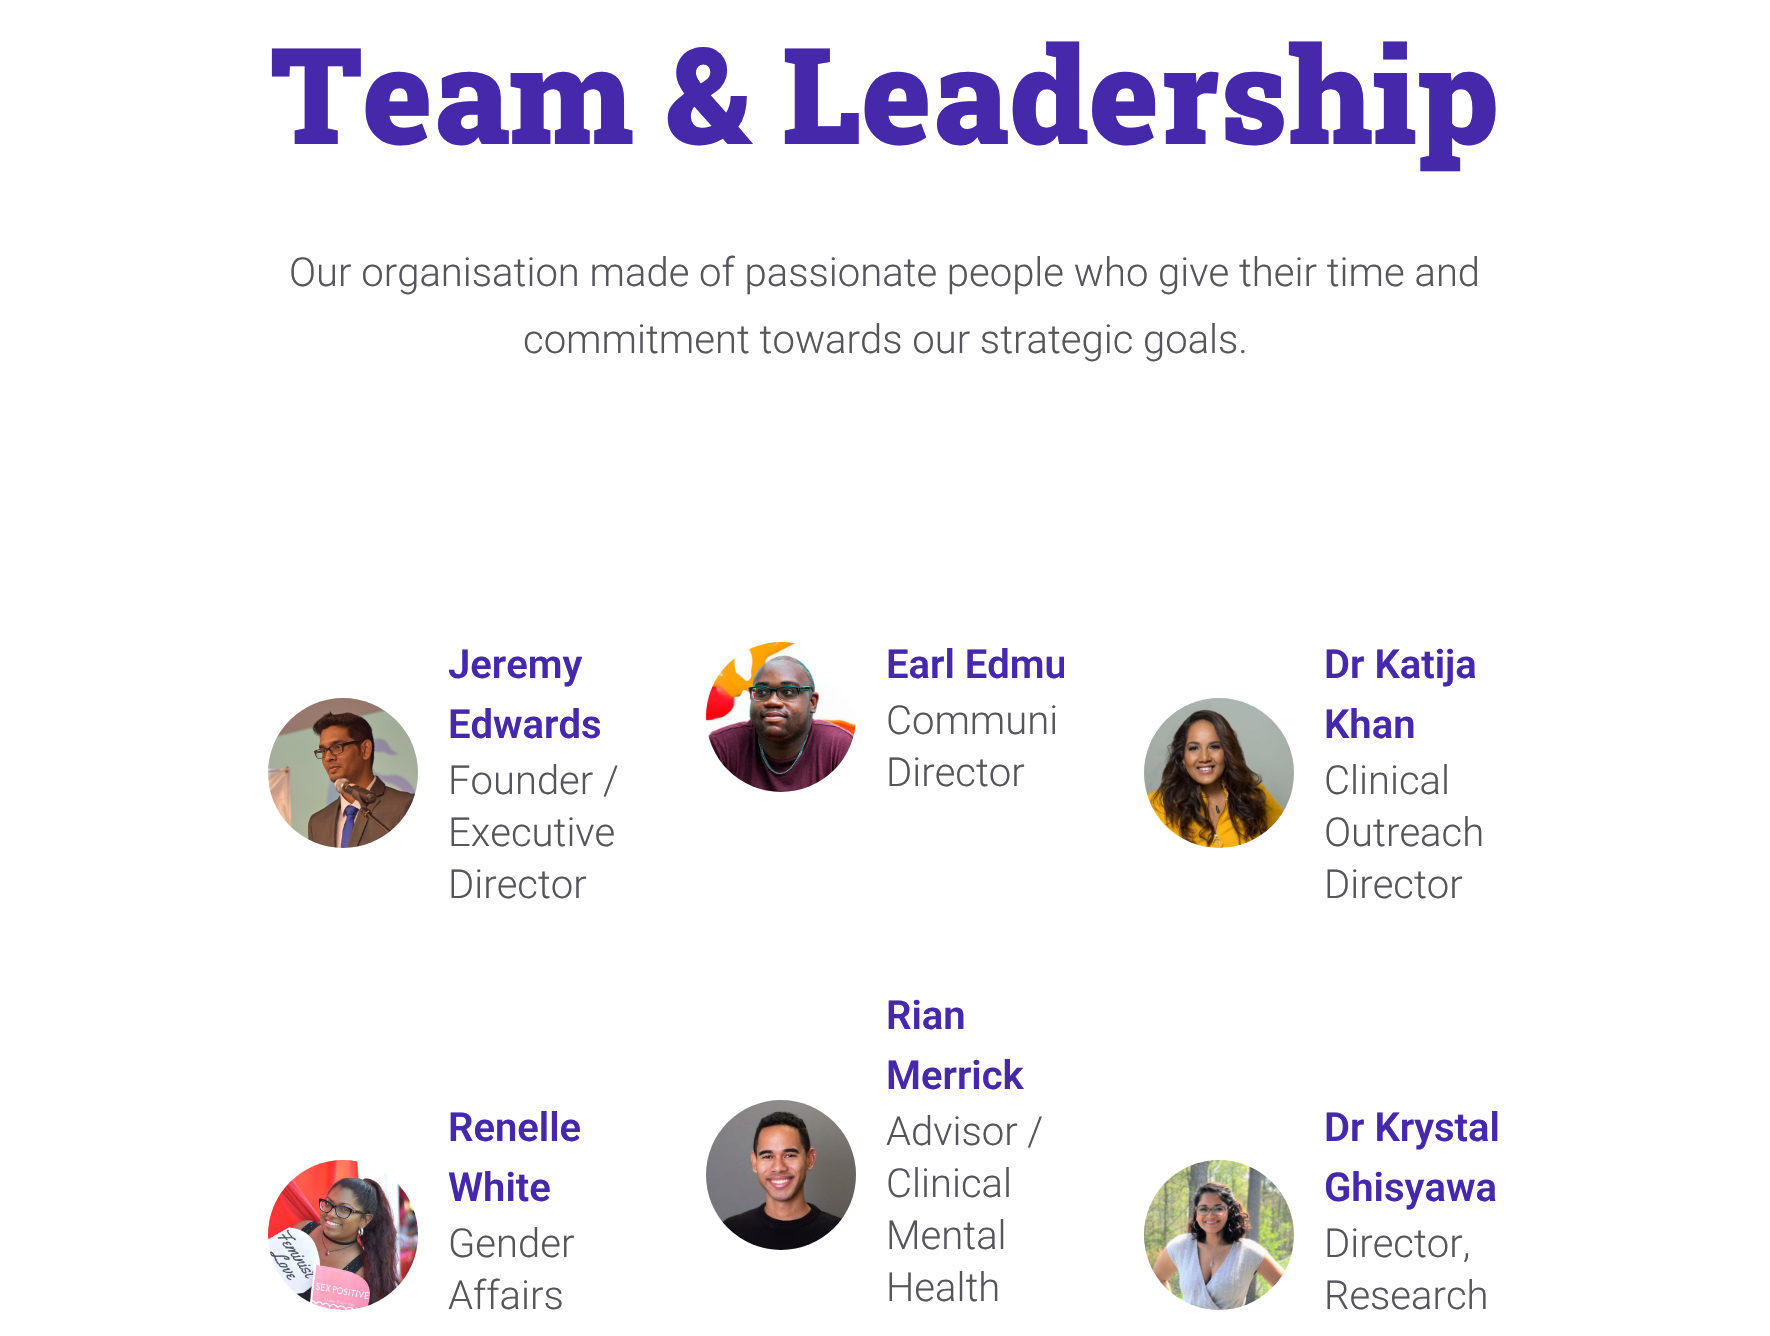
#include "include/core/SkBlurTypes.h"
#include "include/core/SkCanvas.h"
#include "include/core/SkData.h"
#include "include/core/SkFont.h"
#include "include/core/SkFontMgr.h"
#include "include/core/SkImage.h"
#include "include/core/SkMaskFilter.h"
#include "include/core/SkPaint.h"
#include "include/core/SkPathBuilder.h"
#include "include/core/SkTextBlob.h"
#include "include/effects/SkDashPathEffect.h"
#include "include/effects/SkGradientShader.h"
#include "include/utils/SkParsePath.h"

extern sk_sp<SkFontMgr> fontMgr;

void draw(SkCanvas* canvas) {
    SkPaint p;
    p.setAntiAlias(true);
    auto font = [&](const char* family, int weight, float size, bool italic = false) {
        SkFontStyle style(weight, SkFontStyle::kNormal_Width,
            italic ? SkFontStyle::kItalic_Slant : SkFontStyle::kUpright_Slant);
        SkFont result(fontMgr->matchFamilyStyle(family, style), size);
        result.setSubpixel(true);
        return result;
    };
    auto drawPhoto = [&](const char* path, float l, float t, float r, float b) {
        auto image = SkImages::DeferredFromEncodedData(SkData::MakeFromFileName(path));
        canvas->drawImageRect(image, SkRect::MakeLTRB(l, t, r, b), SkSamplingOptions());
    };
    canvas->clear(0xFFFFFFFF);
    auto font1 = font("Roboto Slab", 900, 134.5f);
    p.setColor(0xFF4628AA);
    canvas->drawString("Team & Leadership", 271, 144, font1, p);
    auto font2 = font("Roboto", 300, 40);
    p.setColor(0xFF55555A);
    canvas->drawString("Our organisation made of passionate people who give their time and", 289, 286, font2, p);
    canvas->drawString("commitment towards our strategic goals.", 523, 353, font2, p);
    drawPhoto("media/1.png", 268, 698, 418, 848);
    auto font3 = font("Roboto", 600, 40);
    p.setColor(0xFF4628AA);
    canvas->drawString("Jeremy", 448, 678, font3, p);
    canvas->drawString("Edwards", 448, 738, font3, p);
    p.setColor(0xFF55555A);
    {
        const struct { const char* s; float x, y; } items[] = {
            {"Founder /", 448, 794},
            {"Executive", 448, 846},
            {"Director", 448, 898},
        };
        for (auto [s, x, y] : items) {
            canvas->drawString(s, x, y, font2, p);
        }
    }
    drawPhoto("media/2.png", 268, 1160, 418, 1310);
    p.setColor(0xFF4628AA);
    canvas->drawString("Renelle", 448, 1141, font3, p);
    canvas->drawString("White", 448, 1201, font3, p);
    p.setColor(0xFF55555A);
    canvas->drawString("Gender", 448, 1257, font2, p);
    canvas->drawString("Affairs", 448, 1309, font2, p);
    drawPhoto("media/3.png", 706, 642, 856, 792);
    canvas->save();
    canvas->clipRect(SkRect::MakeLTRB(706, 634, 1064, 804));
    p.setColor(0xFF4628AA);
    canvas->drawString("Earl Edmu", 886, 678, font3, p);
    canvas->restore();
    p.setColor(0xFF55555A);
    canvas->drawString("Communi", 886, 734, font2, p);
    canvas->drawString("Director", 886, 786, font2, p);
    drawPhoto("media/4.png", 706, 1100, 856, 1250);
    p.setColor(0xFF4628AA);
    canvas->drawString("Rian", 886, 1029, font3, p);
    canvas->drawString("Merrick", 886, 1089, font3, p);
    p.setColor(0xFF55555A);
    {
        const struct { const char* s; float x, y; } items[] = {
            {"Advisor /", 886, 1145},
            {"Clinical", 886, 1197},
            {"Mental", 886, 1249},
            {"Health", 886, 1301},
        };
        for (auto [s, x, y] : items) {
            canvas->drawString(s, x, y, font2, p);
        }
    }
    drawPhoto("media/5.png", 1144, 698, 1294, 848);
    p.setColor(0xFF4628AA);
    canvas->drawString("Dr Katija", 1324, 678, font3, p);
    canvas->drawString("Khan", 1324, 738, font3, p);
    p.setColor(0xFF55555A);
    {
        const struct { const char* s; float x, y; } items[] = {
            {"Clinical", 1324, 794},
            {"Outreach", 1324, 846},
            {"Director", 1324, 898},
        };
        for (auto [s, x, y] : items) {
            canvas->drawString(s, x, y, font2, p);
        }
    }
    drawPhoto("media/6.png", 1144, 1160, 1294, 1310);
    p.setColor(0xFF4628AA);
    canvas->drawString("Dr Krystal", 1324, 1141, font3, p);
    canvas->drawString("Ghisyawa", 1324, 1201, font3, p);
    p.setColor(0xFF55555A);
    canvas->drawString("Director,", 1324, 1257, font2, p);
    canvas->drawString("Research", 1324, 1309, font2, p);
}
